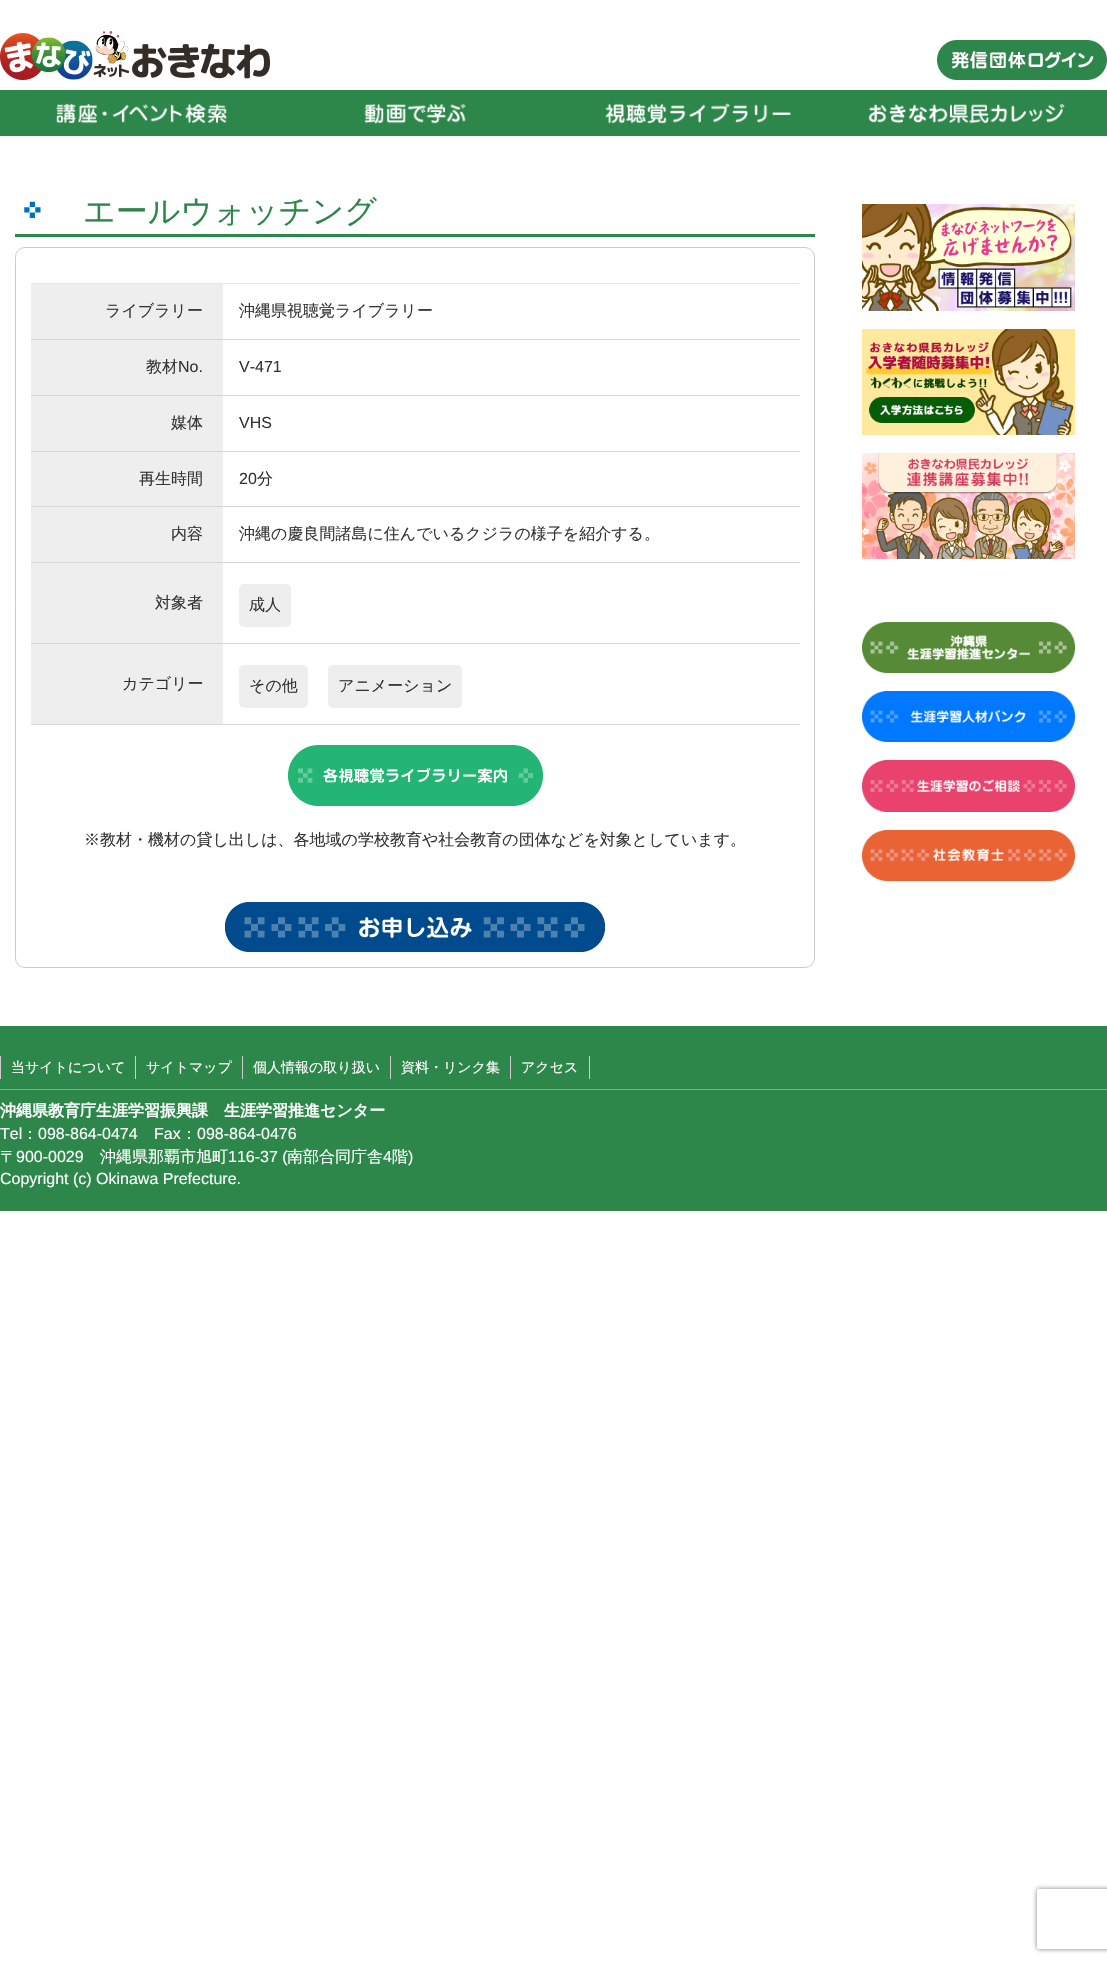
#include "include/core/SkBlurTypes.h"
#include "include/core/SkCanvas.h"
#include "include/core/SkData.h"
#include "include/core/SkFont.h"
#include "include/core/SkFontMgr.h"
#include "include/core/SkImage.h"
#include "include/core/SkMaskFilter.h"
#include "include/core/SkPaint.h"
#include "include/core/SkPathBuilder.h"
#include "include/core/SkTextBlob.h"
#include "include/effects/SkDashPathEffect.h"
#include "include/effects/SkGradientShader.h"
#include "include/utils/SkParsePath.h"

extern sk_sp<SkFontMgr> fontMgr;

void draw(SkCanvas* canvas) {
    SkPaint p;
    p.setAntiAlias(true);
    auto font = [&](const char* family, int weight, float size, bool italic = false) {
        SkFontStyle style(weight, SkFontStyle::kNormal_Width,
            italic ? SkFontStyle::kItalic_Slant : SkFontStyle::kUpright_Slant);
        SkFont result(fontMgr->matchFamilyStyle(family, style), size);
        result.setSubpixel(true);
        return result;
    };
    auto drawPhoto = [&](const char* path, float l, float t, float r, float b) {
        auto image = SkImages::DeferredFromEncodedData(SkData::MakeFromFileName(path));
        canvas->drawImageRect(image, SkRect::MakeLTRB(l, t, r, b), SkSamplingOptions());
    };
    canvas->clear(0xFFFFFFFF);
    drawPhoto("media/1.png", 0, 31, 270, 80);
    drawPhoto("media/2.png", 937, 40, 1107, 80);
    p.setColor(0xFF2D864A);
    canvas->drawRect(SkRect::MakeLTRB(0, 90, 1107, 136), p);
    drawPhoto("media/3.png", 56, 103, 227, 124);
    drawPhoto("media/4.png", 364, 103, 466, 124);
    drawPhoto("media/5.png", 605, 103, 792, 124);
    drawPhoto("media/6.png", 868, 103, 1065, 124);
    drawPhoto("media/7.png", 24, 201, 41, 218);
    canvas->drawRect(SkRect::MakeLTRB(15, 234, 815, 237), p);
    auto font1 = font("Noto Sans", 500, 32);
    canvas->drawString("ホ", 50, 222, font1, p);
    auto font2 = font("WenQuanYi Zen Hei", 500, 32);
    canvas->drawString("エールウォッチング", 83, 222, font2, p);
    p.setStyle(SkPaint::kStroke_Style);
    p.setStrokeWidth(1);
    p.setColor(0xFFCCCCCC);
    canvas->drawRoundRect(SkRect::MakeLTRB(15.5f, 247.5f, 814.5f, 967.5f), 9.5f, 9.5f, p);
    p.setStyle(SkPaint::kFill_Style);
    p.setColor(0xFFE5E5E5);
    canvas->drawRect(SkRect::MakeLTRB(31, 283, 799, 284), p);
    p.setColor(0xFFEEEEEE);
    canvas->drawRect(SkRect::MakeLTRB(31, 284, 223, 339), p);
    auto font3 = font("WenQuanYi Zen Hei", 500, 16);
    p.setColor(0xFF333333);
    canvas->drawString("ライブラリー", 105, 316, font3, p);
    p.setColor(0xFFD6D6D6);
    canvas->drawRect(SkRect::MakeLTRB(31, 339, 800, 340), p);
    p.setColor(0xFF333333);
    canvas->drawString("沖縄県視聴覚ライブラリー", 239, 316, font3, p);
    p.setColor(0xFFEEEEEE);
    canvas->drawRect(SkRect::MakeLTRB(31, 340, 223, 395), p);
    p.setColor(0xFF333333);
    canvas->drawString("教材", 146, 372, font3, p);
    auto font4 = font("Liberation Sans", 400, 16);
    canvas->drawString("No.", 178, 372, font4, p);
    p.setColor(0xFFD6D6D6);
    canvas->drawRect(SkRect::MakeLTRB(31, 395, 800, 396), p);
    p.setColor(0xFF333333);
    canvas->drawString("V-471", 239, 372, font4, p);
    p.setColor(0xFFEEEEEE);
    canvas->drawRect(SkRect::MakeLTRB(31, 396, 223, 451), p);
    p.setColor(0xFF333333);
    canvas->drawString("媒体", 171, 428, font3, p);
    p.setColor(0xFFD6D6D6);
    canvas->drawRect(SkRect::MakeLTRB(31, 451, 800, 452), p);
    p.setColor(0xFF333333);
    canvas->drawString("VHS", 239, 428, font4, p);
    p.setColor(0xFFEEEEEE);
    canvas->drawRect(SkRect::MakeLTRB(31, 452, 223, 506), p);
    p.setColor(0xFF333333);
    canvas->drawString("再生時間", 139, 484, font3, p);
    p.setColor(0xFFD6D6D6);
    canvas->drawRect(SkRect::MakeLTRB(31, 506, 800, 507), p);
    p.setColor(0xFF333333);
    canvas->drawString("20", 239, 484, font4, p);
    canvas->drawString("分", 257, 484, font3, p);
    p.setColor(0xFFEEEEEE);
    canvas->drawRect(SkRect::MakeLTRB(31, 507, 223, 562), p);
    p.setColor(0xFF333333);
    canvas->drawString("内容", 171, 539, font3, p);
    p.setColor(0xFFD6D6D6);
    canvas->drawRect(SkRect::MakeLTRB(31, 562, 800, 563), p);
    p.setColor(0xFF333333);
    canvas->drawString("沖縄の慶良間諸島に住んでいるクジラの様子を紹介する。", 239, 539, font3, p);
    p.setColor(0xFFEEEEEE);
    canvas->drawRect(SkRect::MakeLTRB(31, 563, 223, 643), p);
    p.setColor(0xFF333333);
    canvas->drawString("対象者", 155, 608, font3, p);
    p.setColor(0xFFD6D6D6);
    canvas->drawRect(SkRect::MakeLTRB(31, 643, 800, 644), p);
    p.setColor(0xFFEEEEEE);
    canvas->drawRoundRect(SkRect::MakeLTRB(239, 584, 291, 627), 5, 5, p);
    p.setColor(0xFF333333);
    canvas->drawString("成人", 249, 610, font3, p);
    p.setColor(0xFFEEEEEE);
    canvas->drawRect(SkRect::MakeLTRB(31, 644, 223, 724), p);
    p.setColor(0xFF333333);
    canvas->drawString("カテゴリー", 122, 689, font3, p);
    p.setColor(0xFFD6D6D6);
    canvas->drawRect(SkRect::MakeLTRB(31, 724, 800, 725), p);
    p.setColor(0xFFEEEEEE);
    canvas->drawRoundRect(SkRect::MakeLTRB(239, 665, 308, 708), 5, 5, p);
    p.setColor(0xFF333333);
    canvas->drawString("その他", 249, 691, font3, p);
    p.setColor(0xFFEEEEEE);
    canvas->drawRoundRect(SkRect::MakeLTRB(328, 665, 462, 708), 5, 5, p);
    p.setColor(0xFF333333);
    canvas->drawString("アニメーション", 338, 691, font3, p);
    drawPhoto("media/8.png", 288, 745, 543, 806);
    canvas->drawString("※教材・機材の貸し出しは、各地域の学校教育や社会教育の団体などを対象としています。", 84, 845, font3, p);
    drawPhoto("media/9.png", 225, 902, 605, 952);
    drawPhoto("media/10.png", 862, 204, 1075, 311);
    drawPhoto("media/11.png", 862, 329, 1075, 435);
    drawPhoto("media/12.png", 862, 453, 1075, 559);
    drawPhoto("media/13.png", 862, 622, 1075, 673);
    drawPhoto("media/14.png", 862, 691, 1075, 742);
    drawPhoto("media/15.png", 862, 760, 1075, 812);
    drawPhoto("media/16.png", 862, 830, 1075, 881);
    {
        const struct { float l, t, r, b; SkColor color; } items[] = {
            {0, 1026, 1107, 1211, 0xFF2D864A},
            {0, 1089, 1107, 1090, 0xFF7DB959},
            {0, 1056, 1, 1079, 0xFFCCCCCC},
        };
        for (auto [l, t, r, b, color] : items) {
            p.setColor(color);
            canvas->drawRect(SkRect::MakeLTRB(l, t, r, b), p);
        }
    }
    auto font5 = font("WenQuanYi Zen Hei", 500, 14);
    p.setColor(0xFFFFFFFF);
    canvas->drawString("当サイトについて", 11, 1072, font5, p);
    p.setColor(0xFFCCCCCC);
    canvas->drawRect(SkRect::MakeLTRB(135, 1056, 136, 1079), p);
    p.setColor(0xFFFFFFFF);
    canvas->drawString("サイトマップ", 146, 1072, font5, p);
    p.setColor(0xFFCCCCCC);
    canvas->drawRect(SkRect::MakeLTRB(242, 1056, 243, 1079), p);
    p.setColor(0xFFFFFFFF);
    canvas->drawString("個人情報の取り扱い", 253, 1072, font5, p);
    p.setColor(0xFFCCCCCC);
    canvas->drawRect(SkRect::MakeLTRB(390, 1056, 391, 1079), p);
    p.setColor(0xFFFFFFFF);
    canvas->drawString("資料・リンク集", 401, 1072, font5, p);
    p.setColor(0xFFCCCCCC);
    canvas->drawRect(SkRect::MakeLTRB(589, 1056, 590, 1079), p);
    canvas->drawRect(SkRect::MakeLTRB(510, 1056, 511, 1079), p);
    p.setColor(0xFFFFFFFF);
    canvas->drawString("アクセス", 521, 1072, font5, p);
    auto font6 = font("WenQuanYi Zen Hei", 700, 16);
    canvas->drawString("沖縄県教育庁生涯学習振興課　生涯学習推進センター", 0, 1116, font6, p);
    canvas->drawString("Tel", 0, 1139, font4, p);
    canvas->drawString("：", 22, 1139, font3, p);
    canvas->drawString("098-864-0474", 38, 1139, font4, p);
    canvas->drawString("Fax", 154, 1139, font4, p);
    canvas->drawString("：", 181, 1139, font3, p);
    canvas->drawString("098-864-0476", 197, 1139, font4, p);
    canvas->drawString("〒", 0, 1162, font3, p);
    canvas->drawString("900-0029", 16, 1162, font4, p);
    canvas->drawString("沖縄県那覇市旭町", 100, 1162, font3, p);
    canvas->drawString("116-37 (", 228, 1162, font4, p);
    canvas->drawString("南部合同庁舎", 287, 1162, font3, p);
    canvas->drawString("4", 383, 1162, font4, p);
    canvas->drawString("階", 392, 1162, font3, p);
    canvas->drawString(")", 408, 1162, font4, p);
    canvas->drawString("Copyright (c) Okinawa Prefecture.", 0, 1184, font4, p);
    canvas->save();
    canvas->clipPath(SkPathBuilder(SkPathFillType::kEvenOdd).moveTo(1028, 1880).lineTo(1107, 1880).lineTo(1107, 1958).lineTo(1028, 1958).close().moveTo(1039, 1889).lineTo(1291, 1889).cubicTo(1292, 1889, 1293, 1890, 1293, 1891).lineTo(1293, 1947).cubicTo(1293, 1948, 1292, 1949, 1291, 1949).lineTo(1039, 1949).cubicTo(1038, 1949, 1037, 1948, 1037, 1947).lineTo(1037, 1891).cubicTo(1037, 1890, 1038, 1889, 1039, 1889).close().detach(), true);
    p.setColor(0xFF808080);
    p.setMaskFilter(SkMaskFilter::MakeBlur(kNormal_SkBlurStyle, 2.5f));
    canvas->drawRoundRect(SkRect::MakeLTRB(1037, 1889, 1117, 1949), 2, 2, p);
    p.setMaskFilter(nullptr);
    canvas->restore();
}
